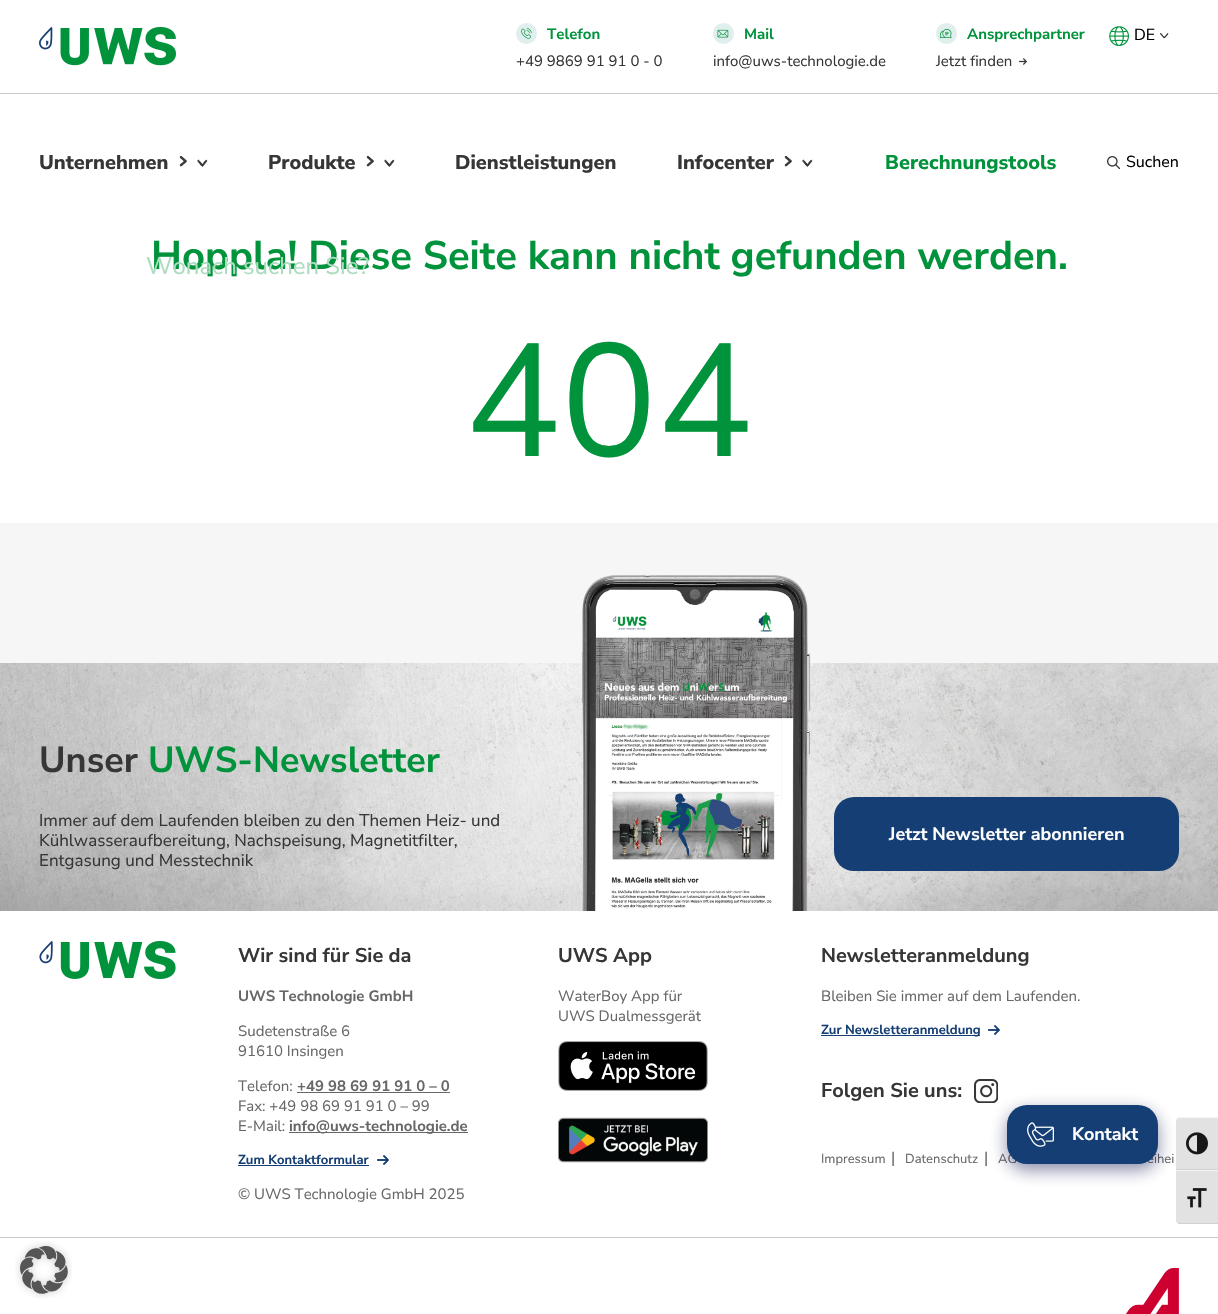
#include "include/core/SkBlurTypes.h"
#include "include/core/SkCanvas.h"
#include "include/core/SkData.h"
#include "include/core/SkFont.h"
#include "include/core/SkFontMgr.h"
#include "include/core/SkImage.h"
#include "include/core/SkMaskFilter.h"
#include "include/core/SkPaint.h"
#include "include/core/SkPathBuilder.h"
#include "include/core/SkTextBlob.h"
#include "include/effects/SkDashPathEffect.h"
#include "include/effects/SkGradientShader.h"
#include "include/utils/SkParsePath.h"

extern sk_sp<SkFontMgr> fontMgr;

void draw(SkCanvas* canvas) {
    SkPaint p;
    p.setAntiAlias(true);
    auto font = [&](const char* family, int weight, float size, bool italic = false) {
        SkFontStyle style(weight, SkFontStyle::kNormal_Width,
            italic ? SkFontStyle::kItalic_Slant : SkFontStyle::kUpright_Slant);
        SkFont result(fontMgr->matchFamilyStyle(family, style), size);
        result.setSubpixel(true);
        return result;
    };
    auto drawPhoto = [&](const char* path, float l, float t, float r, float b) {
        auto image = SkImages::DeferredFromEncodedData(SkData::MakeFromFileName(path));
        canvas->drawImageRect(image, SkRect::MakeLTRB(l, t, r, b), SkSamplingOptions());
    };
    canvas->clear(0xFFFFFFFF);
    p.setColor(0xFFCBCBCB);
    canvas->drawRect(SkRect::MakeLTRB(0, 93, 1218, 94), p);
    drawPhoto("media/1.png", 39, 27, 176, 66);
    p.setColor(0xFFE1EEEE);
    canvas->drawCircle(526.5f, 33.5f, 10.5f, p);
    drawPhoto("media/2.png", 521, 28, 532, 39);
    auto font1 = font("Nunito Sans", 700, 15);
    p.setColor(0xFF00933B);
    canvas->drawString("Telefon", 547, 39, font1, p);
    auto font2 = font("Nunito Sans", 400, 15);
    p.setColor(0xFF363636);
    canvas->drawString("+49 9869 91 91 0 - 0", 516, 66, font2, p);
    p.setColor(0xFFE1EEEE);
    canvas->drawCircle(723.5f, 33.5f, 10.5f, p);
    drawPhoto("media/3.png", 717, 29, 729, 38);
    p.setColor(0xFF00933B);
    canvas->drawString("Mail", 744, 39, font1, p);
    p.setColor(0xFF363636);
    canvas->drawString("info@uws-technologie.de", 713, 66, font2, p);
    p.setColor(0xFFE1EEEE);
    canvas->drawCircle(946.5f, 33.5f, 10.5f, p);
    drawPhoto("media/4.png", 940, 29, 952, 38);
    p.setColor(0xFF00933B);
    canvas->drawString("Ansprechpartner", 967, 39, font1, p);
    p.setColor(0xFF363636);
    canvas->drawString("Jetzt finden", 936, 66, font2, p);
    drawPhoto("media/5.png", 1019, 58, 1027, 65);
    drawPhoto("media/6.png", 1109, 26, 1129, 46);
    auto font3 = font("Nunito Sans", 400, 16);
    p.setColor(0xFF000000);
    canvas->drawString("DE", 1134, 40, font3, p);
    drawPhoto("media/7.png", 1160, 33, 1169, 39);
    auto font4 = font("Nunito Sans", 800, 20);
    p.setColor(0xFF363636);
    canvas->drawString("Unternehmen", 39, 169, font4, p);
    drawPhoto("media/8.png", 179, 156, 187, 167);
    drawPhoto("media/9.png", 197, 159, 208, 167);
    canvas->drawString("Produkte", 268, 169, font4, p);
    drawPhoto("media/8.png", 366, 156, 374, 167);
    drawPhoto("media/9.png", 384, 159, 395, 167);
    canvas->drawString("Dienstleistungen", 455, 169, font4, p);
    canvas->drawString("Infocenter", 677, 169, font4, p);
    drawPhoto("media/8.png", 784, 156, 792, 167);
    drawPhoto("media/9.png", 802, 159, 813, 167);
    p.setColor(0xFF00933B);
    canvas->drawString("Berechnungstools", 885, 169, font4, p);
    drawPhoto("media/10.png", 1107, 156, 1120, 169);
    p.setColor(0xFF000000);
    canvas->drawString("Suchen", 1126, 167, font3, p);
    auto font5 = font("Nunito Sans", 700, 40);
    p.setColor(0xFF00933B);
    canvas->drawString("Hoppla! Diese Seite kann nicht gefunden werden.", 151, 269, font5, p);
    auto font6 = font("Nunito Sans", 400, 160);
    canvas->drawString("404", 465, 456, font6, p);
    auto font7 = font("Nunito Sans", 400, 24);
    p.setColor(0xFFACDCBF);
    canvas->drawString("Wonach suchen Sie?", 146, 274, font7, p);
    drawPhoto("media/11.png", 0, 663, 1218, 911);
    p.setColor(0xFFF6F6F6);
    canvas->drawRect(SkRect::MakeLTRB(0, 523, 1218, 663), p);
    auto font8 = font("Nunito Sans", 700, 36);
    p.setColor(0xFF363636);
    canvas->drawString("Unser", 39, 772, font8, p);
    p.setColor(0xFF00933B);
    canvas->drawString("UWS-Newsletter", 148, 772, font8, p);
    auto font9 = font("Nunito Sans", 400, 17);
    p.setColor(0xFF363636);
    {
        const struct { const char* s; float x, y; } items[] = {
            {"Immer auf dem Laufenden bleiben zu den Themen Heiz- und", 39, 826},
            {"Kühlwasseraufbereitung, Nachspeisung, Magnetitfilter,", 39, 846},
            {"Entgasung und Messtechnik", 39, 866},
        };
        for (auto [s, x, y] : items) {
            canvas->drawString(s, x, y, font9, p);
        }
    }
    drawPhoto("media/12.png", 581, 575, 811, 911);
    p.setColor(0xFF143E74);
    canvas->drawRoundRect(SkRect::MakeLTRB(834, 797, 1179, 871), 20, 20, p);
    auto font10 = font("Nunito Sans", 700, 18);
    p.setColor(0xFFFFFFFF);
    canvas->drawString("Jetzt Newsletter abonnieren", 889, 840, font10, p);
    p.setColor(0xFFCBCBCB);
    canvas->drawRect(SkRect::MakeLTRB(0, 1237, 1218, 1238), p);
    drawPhoto("media/13.png", 39, 941, 176, 979);
    auto font11 = font("Nunito Sans", 700, 20);
    p.setColor(0xFF363636);
    canvas->drawString("Wir sind für Sie da", 238, 962, font11, p);
    p.setColor(0xFF676767);
    canvas->drawString("UWS Technologie GmbH", 238, 1001, font1, p);
    {
        const struct { const char* s; float x, y; } items[] = {
            {"Sudetenstraße 6", 238, 1036},
            {"91610 Insingen", 238, 1056},
            {"Telefon:", 238, 1091},
        };
        for (auto [s, x, y] : items) {
            canvas->drawString(s, x, y, font2, p);
        }
    }
    canvas->drawString("+49 98 69 91 91 0 – 0", 297, 1091, font1, p);
    canvas->drawRect(SkRect::MakeLTRB(297, 1092, 450, 1093), p);
    canvas->drawString("Fax: +49 98 69 91 91 0 – 99", 238, 1111, font2, p);
    canvas->drawString("E-Mail:", 238, 1131, font2, p);
    canvas->drawRect(SkRect::MakeLTRB(289, 1132, 468, 1133), p);
    canvas->drawString("info@uws-technologie.de", 289, 1131, font1, p);
    auto font12 = font("Nunito Sans", 700, 13);
    p.setColor(0xFF143E74);
    canvas->drawString("Zum Kontaktformular", 238, 1164, font12, p);
    canvas->drawRect(SkRect::MakeLTRB(238, 1165, 369, 1166), p);
    drawPhoto("media/14.png", 377, 1155, 389, 1165);
    p.setColor(0xFF676767);
    canvas->drawString("© UWS Technologie GmbH 2025", 238, 1199, font2, p);
    p.setColor(0xFF363636);
    canvas->drawString("UWS App", 558, 962, font11, p);
    p.setColor(0xFF676767);
    canvas->drawString("WaterBoy App für", 558, 1001, font2, p);
    canvas->drawString("UWS Dualmessgerät", 558, 1021, font2, p);
    drawPhoto("media/15.png", 558, 1041, 708, 1091);
    drawPhoto("media/16.png", 558, 1117, 708, 1163);
    p.setColor(0xFF363636);
    canvas->drawString("Newsletteranmeldung", 821, 962, font11, p);
    p.setColor(0xFF676767);
    canvas->drawString("Bleiben Sie immer auf dem Laufenden.", 821, 1001, font2, p);
    p.setColor(0xFF143E74);
    canvas->drawRect(SkRect::MakeLTRB(821, 1035, 980, 1036), p);
    canvas->drawString("Zur Newsletteranmeldung", 821, 1034, font12, p);
    drawPhoto("media/14.png", 988, 1025, 1000, 1035);
    p.setColor(0xFF363636);
    canvas->drawString("Folgen Sie uns:", 821, 1097, font11, p);
    drawPhoto("media/17.png", 974, 1079, 998, 1103);
    auto font13 = font("Nunito Sans", 400, 13);
    p.setColor(0xFF676767);
    canvas->drawString("Impressum", 821, 1163, font13, p);
    canvas->drawString("|", 891, 1163, font3, p);
    canvas->drawString("Datenschutz", 905, 1163, font13, p);
    canvas->drawString("|", 984, 1163, font3, p);
    canvas->drawString("AG", 998, 1163, font13, p);
    canvas->drawString("eihei", 1147, 1163, font13, p);
    drawPhoto("media/18.png", 1126, 1268, 1179, 1314);
    p.setColor(0x80111652);
    p.setMaskFilter(SkMaskFilter::MakeBlur(kNormal_SkBlurStyle, 8.5f));
    canvas->drawRoundRect(SkRect::MakeLTRB(1007, 1111, 1158, 1170), 20, 20, p);
    p.setMaskFilter(nullptr);
    p.setColor(0xFFE2E2E2);
    canvas->drawPath(SkPathBuilder().moveTo(1180, 1117).lineTo(1218, 1117).lineTo(1218, 1170).lineTo(1176, 1170).lineTo(1176, 1121).cubicTo(1176, 1119, 1178, 1117, 1180, 1117).close().detach(), p);
    p.setColor(0xFFF5F5F5);
    canvas->drawPath(SkPathBuilder().moveTo(1180, 1118).lineTo(1218, 1118).lineTo(1218, 1117).lineTo(1180, 1117).cubicTo(1178, 1117, 1176, 1119, 1176, 1121).cubicTo(1176, 1119, 1178, 1118, 1180, 1118).close().detach(), p);
    p.setColor(0xFFD2D2D2);
    canvas->drawRect(SkRect::MakeLTRB(1176, 1169, 1218, 1170), p);
    drawPhoto("media/19.png", 1186, 1132, 1208, 1155);
    p.setColor(0xFFE2E2E2);
    canvas->drawPath(SkPathBuilder().moveTo(1176, 1170).lineTo(1218, 1170).lineTo(1218, 1224).lineTo(1180, 1224).cubicTo(1178, 1224, 1176, 1222, 1176, 1220).close().detach(), p);
    p.setColor(0xFFF5F5F5);
    canvas->drawRect(SkRect::MakeLTRB(1176, 1170, 1218, 1171), p);
    p.setColor(0xFFD2D2D2);
    canvas->drawPath(SkPathBuilder().moveTo(1218, 1224).lineTo(1218, 1223).lineTo(1180, 1223).cubicTo(1178, 1223, 1176, 1222, 1176, 1220).cubicTo(1176, 1222, 1178, 1224, 1180, 1224).close().detach(), p);
    drawPhoto("media/20.png", 1187, 1188, 1207, 1208);
    p.setColor(0xFF143E74);
    canvas->drawRoundRect(SkRect::MakeLTRB(1007, 1105, 1158, 1164), 20, 20, p);
    drawPhoto("media/21.png", 1027, 1122, 1054, 1147);
    p.setColor(0xFFFFFFFF);
    canvas->drawString("Kontakt", 1072, 1140, font10, p);
    drawPhoto("media/22.png", 15, 1241, 72, 1298);
}
